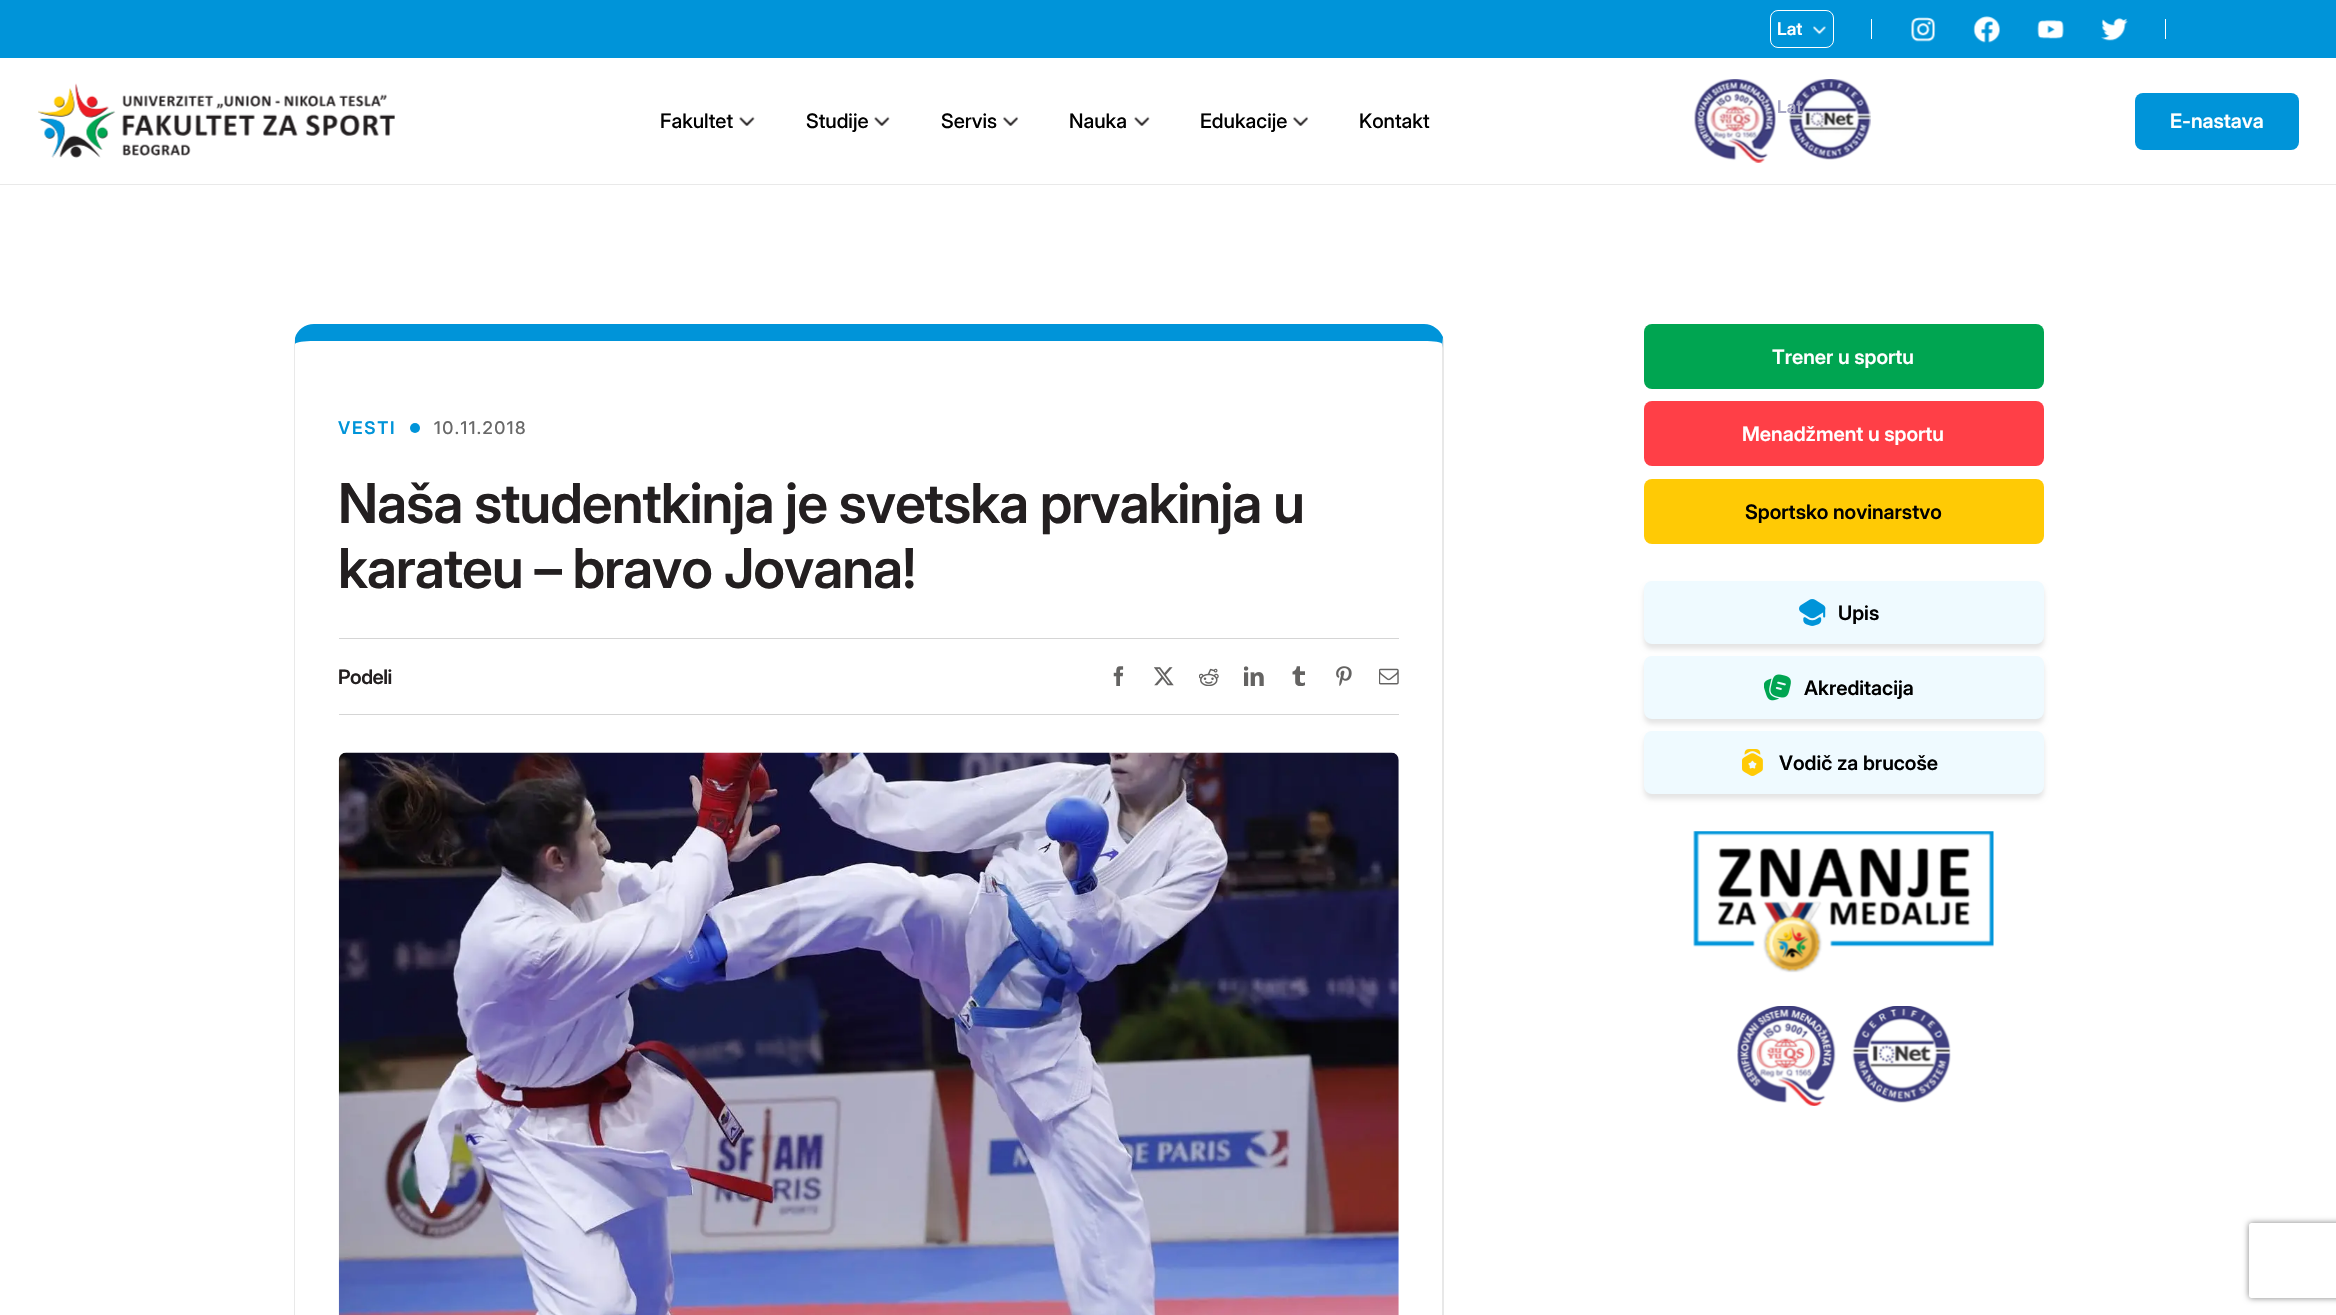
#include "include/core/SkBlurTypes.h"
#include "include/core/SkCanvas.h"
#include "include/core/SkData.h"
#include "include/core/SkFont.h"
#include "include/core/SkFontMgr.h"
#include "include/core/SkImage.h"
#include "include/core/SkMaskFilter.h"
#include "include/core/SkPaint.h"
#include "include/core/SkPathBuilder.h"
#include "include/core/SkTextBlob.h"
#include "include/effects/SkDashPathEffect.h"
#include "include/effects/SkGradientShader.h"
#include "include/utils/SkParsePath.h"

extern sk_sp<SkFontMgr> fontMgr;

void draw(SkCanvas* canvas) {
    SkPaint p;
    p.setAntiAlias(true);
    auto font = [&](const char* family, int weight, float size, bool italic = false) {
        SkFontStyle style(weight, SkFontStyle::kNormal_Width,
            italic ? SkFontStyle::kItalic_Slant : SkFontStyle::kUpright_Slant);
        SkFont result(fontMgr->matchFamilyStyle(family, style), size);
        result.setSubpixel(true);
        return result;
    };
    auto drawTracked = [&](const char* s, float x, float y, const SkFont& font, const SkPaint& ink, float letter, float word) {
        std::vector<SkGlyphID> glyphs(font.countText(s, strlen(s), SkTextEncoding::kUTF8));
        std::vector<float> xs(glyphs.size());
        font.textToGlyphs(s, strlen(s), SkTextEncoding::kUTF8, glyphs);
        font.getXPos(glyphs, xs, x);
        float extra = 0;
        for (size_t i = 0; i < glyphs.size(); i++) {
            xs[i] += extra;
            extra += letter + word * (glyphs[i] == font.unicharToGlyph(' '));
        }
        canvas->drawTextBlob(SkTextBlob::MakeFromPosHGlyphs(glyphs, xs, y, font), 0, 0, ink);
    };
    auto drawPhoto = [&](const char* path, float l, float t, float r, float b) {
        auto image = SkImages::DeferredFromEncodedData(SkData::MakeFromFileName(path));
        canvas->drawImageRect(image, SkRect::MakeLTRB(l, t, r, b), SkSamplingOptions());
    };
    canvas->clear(0xFFFFFFFF);
    p.setColor(0xFF0094D9);
    canvas->drawRect(SkRect::MakeLTRB(0, 0, 2336, 58), p);
    p.setStyle(SkPaint::kStroke_Style);
    p.setStrokeWidth(1);
    p.setColor(0xFFFFFFFF);
    canvas->drawRoundRect(SkRect::MakeLTRB(1770.5f, 10.5f, 1833.5f, 47.5f), 7.5f, 7.5f, p);
    auto font1 = font("Inter", 600, 17.5f);
    p.setStyle(SkPaint::kFill_Style);
    canvas->drawString("Lat", 1777, 35, font1, p);
    drawPhoto("media/1.png", 1813, 26, 1826, 35);
    drawPhoto("media/10.png", 1788, 79, 1871, 160);
    p.setColor(0xFFA8A7C4);
    canvas->drawString("Lat", 1777, 113, font1, p);
    p.setColor(0xFFFFFFFF);
    canvas->drawRect(SkRect::MakeLTRB(1871, 19, 1872, 39), p);
    drawPhoto("media/2.png", 1911, 17, 1936, 42);
    drawPhoto("media/3.png", 1973, 16, 2000, 43);
    drawPhoto("media/4.png", 2037, 20, 2064, 39);
    drawPhoto("media/5.png", 2101, 18, 2128, 41);
    canvas->drawRect(SkRect::MakeLTRB(2165, 19, 2166, 39), p);
    drawPhoto("media/6.png", 38, 83, 395, 158);
    auto font2 = font("Inter", 500, 20);
    p.setColor(0xFF000000);
    canvas->drawString("Fakultet", 660, 128, font2, p);
    drawPhoto("media/7.png", 739, 116, 755, 126);
    canvas->drawString("Studije", 806, 128, font2, p);
    drawPhoto("media/7.png", 874, 116, 890, 126);
    canvas->drawString("Servis", 941, 128, font2, p);
    drawPhoto("media/8.png", 1003, 116, 1019, 126);
    canvas->drawString("Nauka", 1069, 128, font2, p);
    drawPhoto("media/7.png", 1134, 116, 1150, 126);
    canvas->drawString("Edukacije", 1200, 128, font2, p);
    drawPhoto("media/8.png", 1293, 116, 1309, 126);
    canvas->drawString("Kontakt", 1359, 128, font2, p);
    drawPhoto("media/9.png", 1694, 79, 1776, 163);
    p.setColor(0xFF0094D9);
    canvas->drawRoundRect(SkRect::MakeLTRB(2135, 93, 2299, 150), 8, 8, p);
    auto font3 = font("Inter", 600, 20);
    p.setColor(0xFFFFFFFF);
    canvas->drawString("E-nastava", 2170, 128, font3, p);
    p.setColor(0xFFE9E9E9);
    canvas->drawRect(SkRect::MakeLTRB(0, 184, 2336, 185), p);
    p.setColor(0xFF0094D9);
    canvas->drawPath(SkPathBuilder().moveTo(314, 324).cubicTo(305, 324, 297, 330, 295, 338).lineTo(295, 344).cubicTo(296, 342, 304, 341, 314, 341).lineTo(1424, 341).cubicTo(1434, 341, 1442, 342, 1442, 344).lineTo(1442, 348).lineTo(1443, 337).cubicTo(1440, 330, 1433, 324, 1424, 324).close().detach(), p);
    p.setColor(0x1A222222);
    canvas->drawPath(SkPathBuilder().moveTo(1444, 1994).cubicTo(1443, 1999, 1441, 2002, 1438, 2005).lineTo(1437, 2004).cubicTo(1440, 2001, 1442, 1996, 1442, 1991).lineTo(1442, 348).lineTo(1443, 337).lineTo(1444, 341).close().detach(), p);
    p.setColor(0xFFE9E9E9);
    canvas->drawPath(SkPathBuilder().moveTo(295, 338).lineTo(294, 344).lineTo(294, 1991).cubicTo(294, 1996, 296, 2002, 300, 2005).cubicTo(297, 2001, 295, 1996, 295, 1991).lineTo(295, 344).close().detach(), p);
    p.setColor(0xFFD5D5D5);
    canvas->drawRect(SkRect::MakeLTRB(339, 638, 1399, 639), p);
    p.setColor(0xFF0094D9);
    drawTracked("VESTI", 338, 434, font1, p, 1.75f, 0);
    canvas->drawCircle(415, 428, 5, p);
    auto font4 = font("Inter", 500, 17.5f);
    p.setColor(0xFF686868);
    drawTracked("10.11.2018", 434, 434, font4, p, 1.5f, 0);
    auto font5 = font("Inter", 600, 55);
    p.setColor(0xFF231F20);
    drawTracked("Naša studentkinja je svetska prvakinja u", 338, 523, font5, p, -1.1f, 0);
    drawTracked("karateu – bravo Jovana!", 338, 588, font5, p, -1.1f, 0);
    p.setColor(0xFFD5D5D5);
    canvas->drawRect(SkRect::MakeLTRB(339, 714, 1399, 715), p);
    p.setColor(0xFF231F20);
    drawTracked("Podeli", 338, 684, font3, p, -0.5f, 0);
    drawPhoto("media/11.png", 1113, 666, 1124, 686);
    drawPhoto("media/12.png", 1154, 667, 1174, 686);
    drawPhoto("media/13.png", 1199, 668, 1219, 686);
    drawPhoto("media/14.png", 1244, 666, 1264, 686);
    drawPhoto("media/15.png", 1292, 666, 1305, 686);
    drawPhoto("media/16.png", 1336, 666, 1352, 686);
    drawPhoto("media/17.png", 1379, 668, 1399, 685);
    drawPhoto("media/18.png", 338, 752, 1399, 1315);
    p.setColor(0xFF00A551);
    canvas->drawRoundRect(SkRect::MakeLTRB(1644, 324, 2044, 389), 8, 8, p);
    p.setColor(0xFFFFFFFF);
    canvas->drawString("Trener u sportu", 1772, 364, font3, p);
    p.setColor(0xFFFF3F47);
    canvas->drawRoundRect(SkRect::MakeLTRB(1644, 401, 2044, 466), 8, 8, p);
    p.setColor(0xFFFFFFFF);
    canvas->drawString("Menadžment u sportu", 1742, 441, font3, p);
    p.setColor(0xFFFFCA05);
    canvas->drawRoundRect(SkRect::MakeLTRB(1644, 479, 2044, 544), 8, 8, p);
    p.setColor(0xFF000000);
    canvas->drawString("Sportsko novinarstvo", 1745, 519, font3, p);
    p.setColor(0x1A000000);
    p.setMaskFilter(SkMaskFilter::MakeBlur(kNormal_SkBlurStyle, 2.5f));
    canvas->drawRoundRect(SkRect::MakeLTRB(1644, 586, 2044, 649), 8, 8, p);
    p.setMaskFilter(nullptr);
    p.setColor(0xFFEFFAFF);
    canvas->drawRoundRect(SkRect::MakeLTRB(1644, 581, 2044, 644), 8, 8, p);
    drawPhoto("media/19.png", 1799, 599, 1826, 626);
    p.setColor(0xFF000000);
    canvas->drawString("Upis", 1838, 620, font3, p);
    p.setColor(0x1A000000);
    p.setMaskFilter(SkMaskFilter::MakeBlur(kNormal_SkBlurStyle, 2.5f));
    canvas->drawRoundRect(SkRect::MakeLTRB(1644, 661, 2044, 724), 8, 8, p);
    p.setMaskFilter(nullptr);
    p.setColor(0xFFEFFAFF);
    canvas->drawRoundRect(SkRect::MakeLTRB(1644, 656, 2044, 719), 8, 8, p);
    drawPhoto("media/20.png", 1764, 674, 1791, 701);
    p.setColor(0xFF000000);
    canvas->drawString("Akreditacija", 1804, 695, font3, p);
    p.setColor(0x1A000000);
    p.setMaskFilter(SkMaskFilter::MakeBlur(kNormal_SkBlurStyle, 2.5f));
    canvas->drawRoundRect(SkRect::MakeLTRB(1644, 736, 2044, 799), 8, 8, p);
    p.setMaskFilter(nullptr);
    p.setColor(0xFFEFFAFF);
    canvas->drawRoundRect(SkRect::MakeLTRB(1644, 731, 2044, 794), 8, 8, p);
    drawPhoto("media/21.png", 1742, 749, 1763, 776);
    p.setColor(0xFF000000);
    canvas->drawString("Vodič za brucoše", 1779, 770, font3, p);
    drawPhoto("media/22.png", 1693, 831, 1994, 973);
    drawPhoto("media/23.png", 1737, 1006, 1951, 1106);
    canvas->save();
    canvas->clipPath(SkPathBuilder(SkPathFillType::kEvenOdd).moveTo(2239, 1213).lineTo(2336, 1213).lineTo(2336, 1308).lineTo(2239, 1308).close().moveTo(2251.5f, 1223).lineTo(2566.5f, 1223).cubicTo(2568, 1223, 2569, 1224, 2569, 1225.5f).lineTo(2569, 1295.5f).cubicTo(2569, 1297, 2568, 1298, 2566.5f, 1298).lineTo(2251.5f, 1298).cubicTo(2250, 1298, 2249, 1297, 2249, 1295.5f).lineTo(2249, 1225.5f).cubicTo(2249, 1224, 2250, 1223, 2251.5f, 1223).close().detach(), true);
    p.setColor(0xFF808080);
    p.setMaskFilter(SkMaskFilter::MakeBlur(kNormal_SkBlurStyle, 3));
    canvas->drawRoundRect(SkRect::MakeLTRB(2249, 1223, 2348, 1298), 2.5f, 2.5f, p);
    p.setMaskFilter(nullptr);
    canvas->restore();
}
